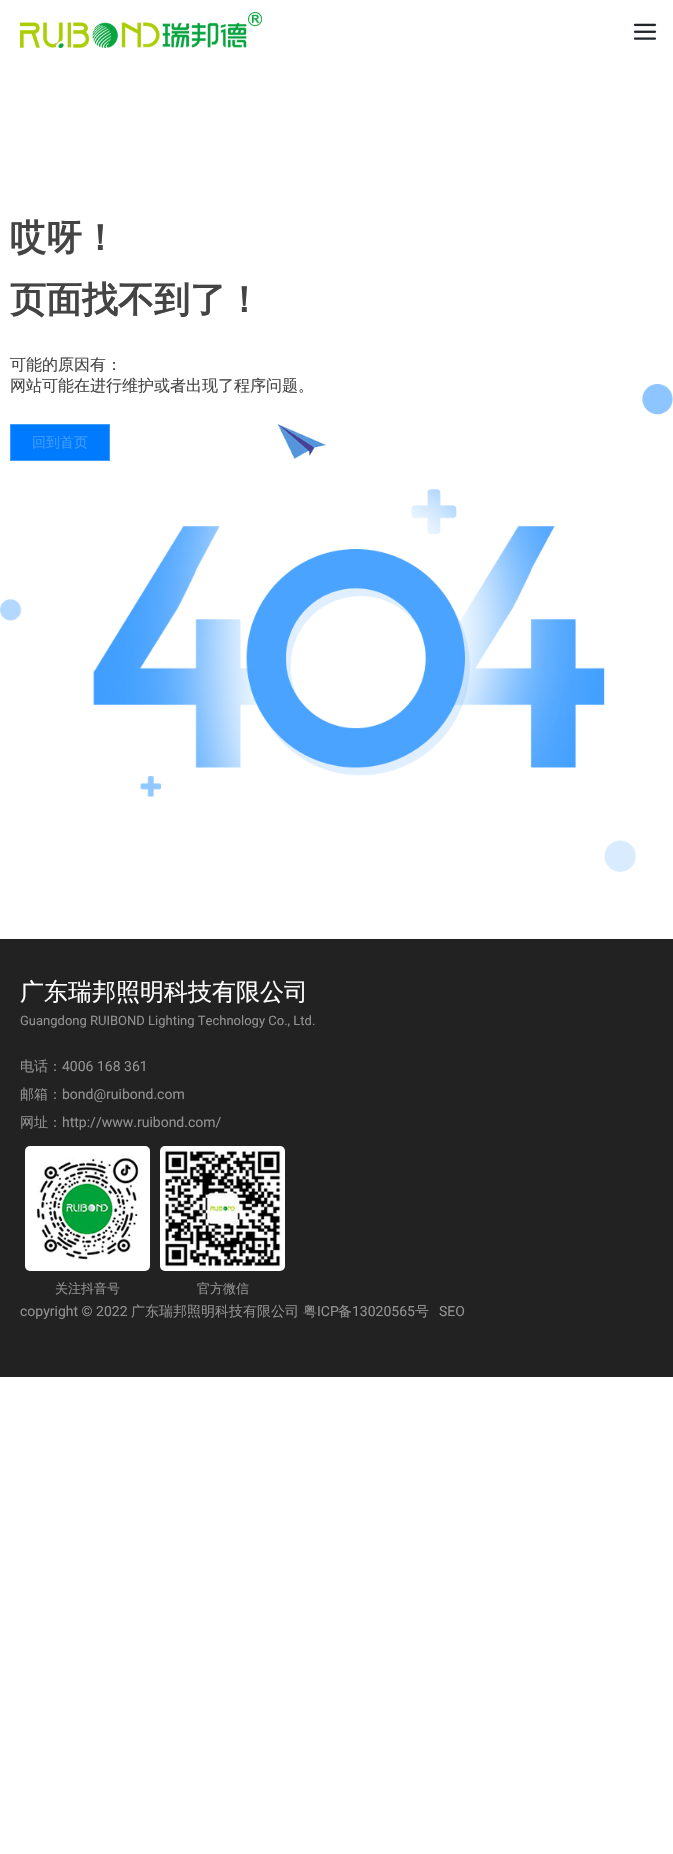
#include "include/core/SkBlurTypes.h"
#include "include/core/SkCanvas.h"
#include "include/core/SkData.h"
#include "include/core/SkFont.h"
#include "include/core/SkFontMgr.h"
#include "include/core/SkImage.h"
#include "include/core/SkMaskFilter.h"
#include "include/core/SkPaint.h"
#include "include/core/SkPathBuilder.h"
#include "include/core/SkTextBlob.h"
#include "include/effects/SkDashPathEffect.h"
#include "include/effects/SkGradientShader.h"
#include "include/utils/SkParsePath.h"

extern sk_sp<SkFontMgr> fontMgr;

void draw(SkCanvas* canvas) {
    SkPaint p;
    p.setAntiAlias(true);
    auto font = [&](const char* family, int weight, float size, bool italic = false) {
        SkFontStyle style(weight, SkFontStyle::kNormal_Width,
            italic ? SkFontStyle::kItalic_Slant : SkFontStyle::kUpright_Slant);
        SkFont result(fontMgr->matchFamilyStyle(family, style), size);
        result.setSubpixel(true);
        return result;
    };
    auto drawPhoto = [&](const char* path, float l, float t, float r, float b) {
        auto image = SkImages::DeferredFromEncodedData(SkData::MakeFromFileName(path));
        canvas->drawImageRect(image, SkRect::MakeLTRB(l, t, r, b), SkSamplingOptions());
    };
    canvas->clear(0xFFFFFFFF);
    drawPhoto("media/1.png", 20, 12, 262, 48);
    drawPhoto("media/2.png", 633, 23, 657, 40);
    auto font1 = font("WenQuanYi Zen Hei", 700, 36);
    p.setColor(0xFF444444);
    canvas->drawString("哎呀！", 10, 250, font1, p);
    canvas->drawString("页面找不到了！", 10, 312, font1, p);
    auto font2 = font("WenQuanYi Zen Hei", 500, 16);
    canvas->drawString("可能的原因有：", 10, 370, font2, p);
    canvas->drawString("网站可能在进行维护或者出现了程序问题。", 10, 391, font2, p);
    drawPhoto("media/3.png", 0, 384, 673, 872);
    p.setColor(0xFF007BFF);
    canvas->drawRect(SkRect::MakeLTRB(10.5f, 424.5f, 109.5f, 460.5f), p);
    p.setStyle(SkPaint::kStroke_Style);
    p.setStrokeWidth(1);
    p.setColor(0xFF409EFF);
    canvas->drawRect(SkRect::MakeLTRB(10.5f, 424.5f, 109.5f, 460.5f), p);
    auto font3 = font("WenQuanYi Zen Hei", 500, 14);
    p.setStyle(SkPaint::kFill_Style);
    canvas->drawString("回到首页", 32, 447, font3, p);
    p.setColor(0xFF222222);
    canvas->drawRect(SkRect::MakeLTRB(0, 939, 673, 1377), p);
    auto font4 = font("WenQuanYi Zen Hei", 500, 24);
    p.setColor(0xFFFFFFFF);
    canvas->drawString("广东瑞邦照明科技有限公司", 20, 1000, font4, p);
    auto font5 = font("Roboto", 400, 13);
    p.setColor(0xFF919191);
    canvas->drawString("Guangdong RUIBOND Lighting Technology Co., Ltd.", 20, 1025, font5, p);
    canvas->drawString("电话：", 20, 1071, font3, p);
    auto font6 = font("Roboto", 400, 14);
    canvas->drawString("4006 168 361", 62, 1071, font6, p);
    canvas->drawString("邮箱：", 20, 1099, font3, p);
    canvas->drawString("bond@ruibond.com", 62, 1099, font6, p);
    canvas->drawString("网址：", 20, 1127, font3, p);
    canvas->drawString("http://www.ruibond.com/", 62, 1127, font6, p);
    drawPhoto("media/4.png", 25, 1146, 150, 1271);
    auto font7 = font("WenQuanYi Zen Hei", 500, 13);
    canvas->drawString("关注抖音号", 55, 1293, font7, p);
    drawPhoto("media/5.png", 160, 1146, 285, 1271);
    canvas->drawString("官方微信", 197, 1293, font7, p);
    canvas->drawString("copyright © 2022", 20, 1316, font6, p);
    canvas->drawString("广东瑞邦照明科技有限公司", 131, 1316, font3, p);
    canvas->drawString("粤", 303, 1316, font3, p);
    canvas->drawString("ICP", 317, 1316, font6, p);
    canvas->drawString("备", 338, 1316, font3, p);
    canvas->drawString("13020565", 352, 1316, font6, p);
    canvas->drawString("号", 415, 1316, font3, p);
    canvas->drawString("SEO", 439, 1316, font6, p);
}
